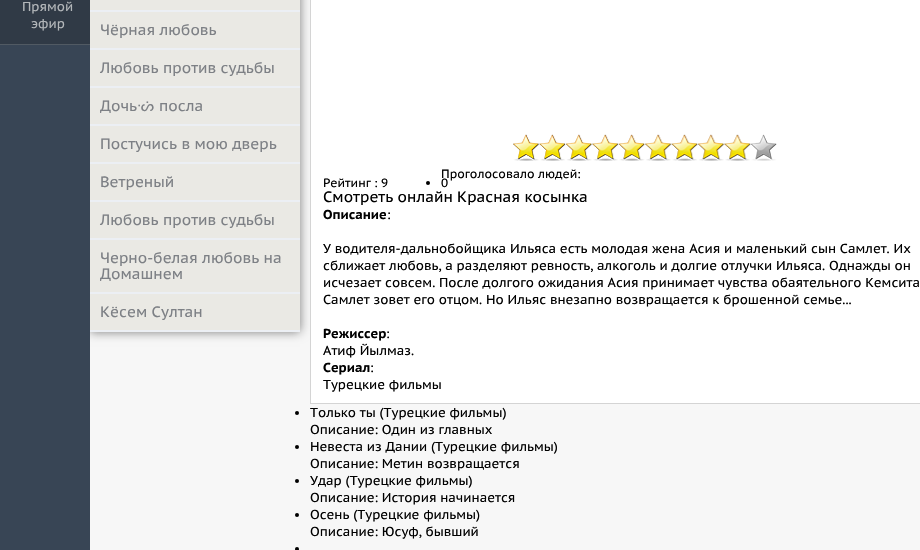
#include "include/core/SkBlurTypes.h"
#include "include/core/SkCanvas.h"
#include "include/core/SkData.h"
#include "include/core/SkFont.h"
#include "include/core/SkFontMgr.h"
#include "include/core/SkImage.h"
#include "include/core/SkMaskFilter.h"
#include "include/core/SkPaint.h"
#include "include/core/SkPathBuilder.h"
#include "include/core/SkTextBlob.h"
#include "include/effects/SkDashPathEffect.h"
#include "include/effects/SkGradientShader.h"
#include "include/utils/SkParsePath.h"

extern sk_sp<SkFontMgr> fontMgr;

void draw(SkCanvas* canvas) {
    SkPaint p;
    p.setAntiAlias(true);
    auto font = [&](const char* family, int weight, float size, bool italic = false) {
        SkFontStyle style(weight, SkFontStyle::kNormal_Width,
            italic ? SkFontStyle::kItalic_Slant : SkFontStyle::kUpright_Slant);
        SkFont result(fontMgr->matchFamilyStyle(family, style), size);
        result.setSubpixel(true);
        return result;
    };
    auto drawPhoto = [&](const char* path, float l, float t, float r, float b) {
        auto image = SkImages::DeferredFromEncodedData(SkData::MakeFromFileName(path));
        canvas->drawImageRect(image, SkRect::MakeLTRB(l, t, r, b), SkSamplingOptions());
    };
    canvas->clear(0xFFF7F7F7);
    p.setColor(0x80000000);
    p.setMaskFilter(SkMaskFilter::MakeBlur(kNormal_SkBlurStyle, 5));
    canvas->drawRect(SkRect::MakeLTRB(90, -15, 300, 332), p);
    p.setMaskFilter(nullptr);
    p.setColor(0xFF303A46);
    canvas->drawRect(SkRect::MakeLTRB(0, 0, 90, 44), p);
    p.setColor(0xFF515A63);
    canvas->drawRect(SkRect::MakeLTRB(0, 44, 90, 45), p);
    auto font1 = font("PT Sans Caption", 400, 13);
    p.setColor(0xFFB3B7BA);
    canvas->drawString("Прямой", 22, 11, font1, p);
    canvas->drawString("эфир", 31, 28, font1, p);
    {
        const struct { float l, t, r, b; SkColor color; } items[] = {
            {0, 45, 90, 550, 0xFF384555},
            {90, 0, 300, 10, 0xFFEAE9E4},
            {90, 10, 300, 12, 0xFFECEFF4},
            {90, 12, 300, 48, 0xFFEAE9E4},
            {90, 48, 300, 50, 0xFFECEFF4},
        };
        for (auto [l, t, r, b, color] : items) {
            p.setColor(color);
            canvas->drawRect(SkRect::MakeLTRB(l, t, r, b), p);
        }
    }
    auto font2 = font("PT Sans Caption", 400, 15);
    p.setColor(0xFF7D8085);
    canvas->drawString("Чёрная любовь", 100, 35, font2, p);
    p.setColor(0xFFEAE9E4);
    canvas->drawRect(SkRect::MakeLTRB(90, 50, 300, 86), p);
    p.setColor(0xFFECEFF4);
    canvas->drawRect(SkRect::MakeLTRB(90, 86, 300, 88), p);
    p.setColor(0xFF7D8085);
    canvas->drawString("Любовь против судьбы", 100, 73, font2, p);
    p.setColor(0xFFEAE9E4);
    canvas->drawRect(SkRect::MakeLTRB(90, 88, 300, 124), p);
    p.setColor(0xFFECEFF4);
    canvas->drawRect(SkRect::MakeLTRB(90, 124, 300, 126), p);
    p.setColor(0xFF7D8085);
    canvas->drawString("Дочь", 100, 111, font2, p);
    auto font3 = font("DejaVu Sans", 400, 15);
    canvas->drawString("ᔣ", 137, 111, font3, p);
    canvas->drawString("посла", 159, 111, font2, p);
    p.setColor(0xFFEAE9E4);
    canvas->drawRect(SkRect::MakeLTRB(90, 126, 300, 162), p);
    p.setColor(0xFFECEFF4);
    canvas->drawRect(SkRect::MakeLTRB(90, 162, 300, 164), p);
    p.setColor(0xFF7D8085);
    canvas->drawString("Постучись в мою дверь", 100, 149, font2, p);
    p.setColor(0xFFEAE9E4);
    canvas->drawRect(SkRect::MakeLTRB(90, 164, 300, 200), p);
    p.setColor(0xFFECEFF4);
    canvas->drawRect(SkRect::MakeLTRB(90, 200, 300, 202), p);
    p.setColor(0xFF7D8085);
    canvas->drawString("Ветреный", 100, 187, font2, p);
    p.setColor(0xFFEAE9E4);
    canvas->drawRect(SkRect::MakeLTRB(90, 202, 300, 238), p);
    p.setColor(0xFFECEFF4);
    canvas->drawRect(SkRect::MakeLTRB(90, 238, 300, 240), p);
    p.setColor(0xFF7D8085);
    canvas->drawString("Любовь против судьбы", 100, 225, font2, p);
    p.setColor(0xFFEAE9E4);
    canvas->drawRect(SkRect::MakeLTRB(90, 240, 300, 292), p);
    p.setColor(0xFFECEFF4);
    canvas->drawRect(SkRect::MakeLTRB(90, 292, 300, 294), p);
    p.setColor(0xFF7D8085);
    canvas->drawString("Черно-белая любовь на", 100, 263, font2, p);
    canvas->drawString("Домашнем", 100, 279, font2, p);
    p.setColor(0xFFEAE9E4);
    canvas->drawRect(SkRect::MakeLTRB(90, 294, 300, 330), p);
    p.setColor(0xFFECEFF4);
    canvas->drawRect(SkRect::MakeLTRB(90, 330, 300, 332), p);
    p.setColor(0xFF7D8085);
    canvas->drawString("Кёсем Султан", 100, 317, font2, p);
    {
        const struct { float l, t, r, b; SkColor color; } items[] = {
            {311, 0, 920, 403, 0xFFFFFFFF},
            {310, 403, 920, 404, 0xFFD4D4D4},
            {310, 0, 311, 404, 0xFFD4D4D4},
        };
        for (auto [l, t, r, b, color] : items) {
            p.setColor(color);
            canvas->drawRect(SkRect::MakeLTRB(l, t, r, b), p);
        }
    }
    drawPhoto("media/1.png", 513, 134, 777, 161);
    drawPhoto("media/2.png", 513, 134, 751, 161);
    auto font4 = font("PT Sans Caption", 400, 12);
    p.setColor(0xFF000000);
    canvas->drawString("Рейтинг : 9", 323, 187, font4, p);
    canvas->drawString("Проголосовало людей:", 441, 178, font4, p);
    canvas->drawCircle(428, 183, 2, p);
    canvas->drawString("0", 441, 187, font4, p);
    canvas->drawString("Смотреть онлайн Красная косынка", 323, 202, font2, p);
    auto font5 = font("PT Sans Caption", 700, 13);
    canvas->drawString("Описание", 323, 219, font5, p);
    {
        const struct { const char* s; float x, y; } items[] = {
            {":", 387, 219},
            {"У водителя-дальнобойщика Ильяса есть молодая жена Асия и маленький сын Самлет. Их", 323, 253},
            {"сближает любовь, а разделяют ревность, алкоголь и долгие отлучки Ильяса. Однажды он", 323, 270},
            {"исчезает совсем. После долгого ожидания Асия принимает чувства обаятельного Кемсита", 323, 287},
            {"Самлет зовет его отцом. Но Ильяс внезапно возвращается к брошенной семье...", 323, 304},
        };
        for (auto [s, x, y] : items) {
            canvas->drawString(s, x, y, font1, p);
        }
    }
    canvas->drawString("Режиссер", 323, 338, font5, p);
    canvas->drawString(":", 386, 338, font1, p);
    canvas->drawString("Атиф Йылмаз.", 323, 355, font1, p);
    canvas->drawString("Сериал", 323, 372, font5, p);
    canvas->drawString(":", 370, 372, font1, p);
    canvas->drawString("Турецкие фильмы", 323, 389, font1, p);
    canvas->drawCircle(297, 413, 2, p);
    canvas->drawString("Только ты (Турецкие фильмы)", 310, 417, font1, p);
    canvas->drawString("Описание: Один из главных", 310, 434, font1, p);
    canvas->drawCircle(297, 447, 2, p);
    canvas->drawString("Невеста из Дании (Турецкие фильмы)", 310, 451, font1, p);
    canvas->drawString("Описание: Метин возвращается", 310, 468, font1, p);
    canvas->drawCircle(297, 481, 2, p);
    canvas->drawString("Удар (Турецкие фильмы)", 310, 485, font1, p);
    canvas->drawString("Описание: История начинается", 310, 502, font1, p);
    canvas->drawCircle(297, 515, 2, p);
    canvas->drawString("Осень (Турецкие фильмы)", 310, 519, font1, p);
    canvas->drawString("Описание: Юсуф, бывший", 310, 536, font1, p);
    canvas->drawCircle(297, 549, 2, p);
}
